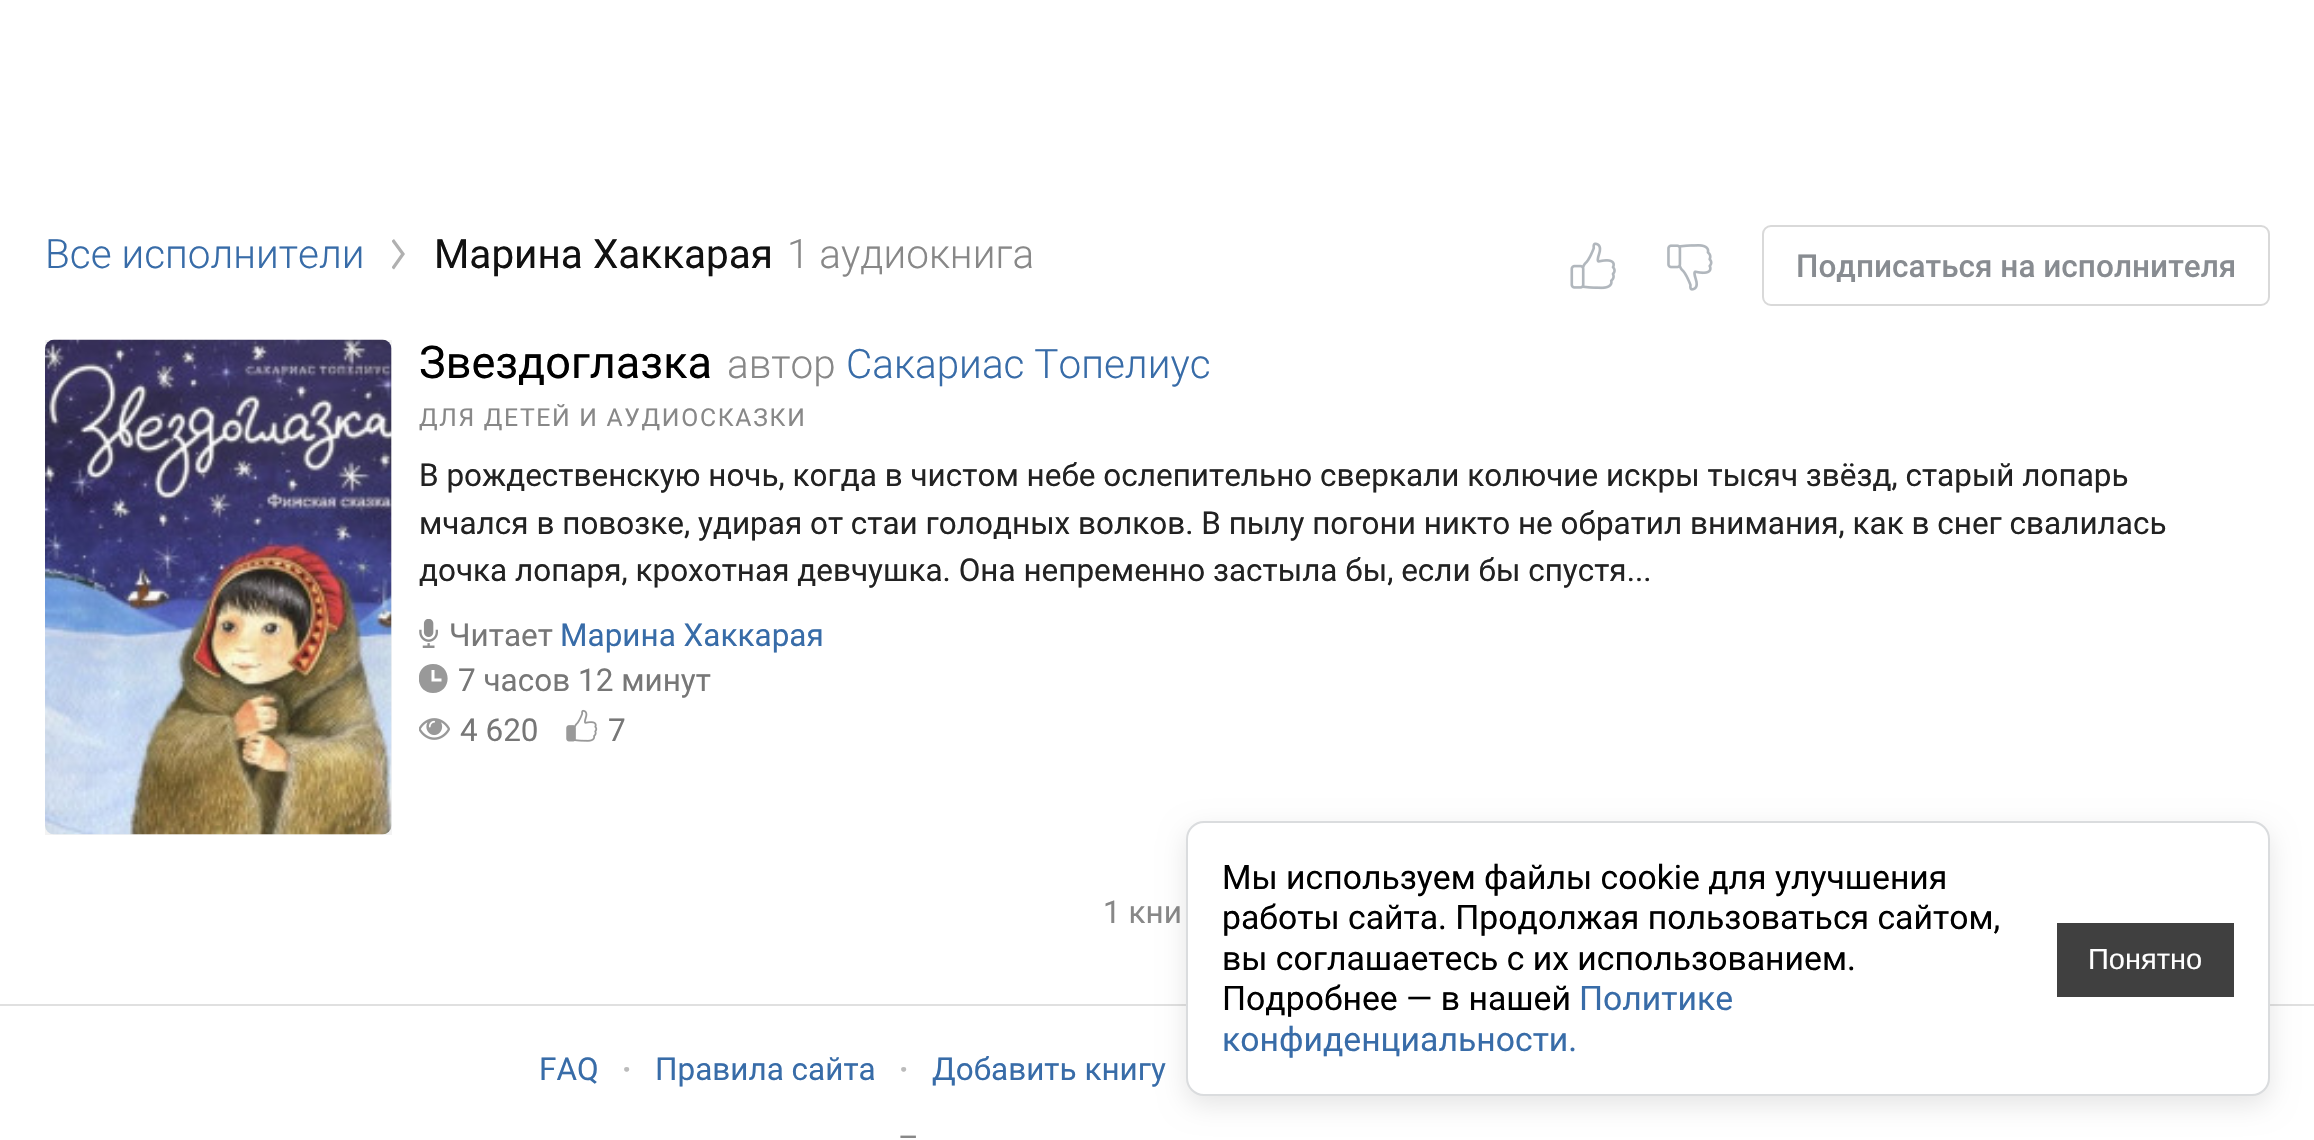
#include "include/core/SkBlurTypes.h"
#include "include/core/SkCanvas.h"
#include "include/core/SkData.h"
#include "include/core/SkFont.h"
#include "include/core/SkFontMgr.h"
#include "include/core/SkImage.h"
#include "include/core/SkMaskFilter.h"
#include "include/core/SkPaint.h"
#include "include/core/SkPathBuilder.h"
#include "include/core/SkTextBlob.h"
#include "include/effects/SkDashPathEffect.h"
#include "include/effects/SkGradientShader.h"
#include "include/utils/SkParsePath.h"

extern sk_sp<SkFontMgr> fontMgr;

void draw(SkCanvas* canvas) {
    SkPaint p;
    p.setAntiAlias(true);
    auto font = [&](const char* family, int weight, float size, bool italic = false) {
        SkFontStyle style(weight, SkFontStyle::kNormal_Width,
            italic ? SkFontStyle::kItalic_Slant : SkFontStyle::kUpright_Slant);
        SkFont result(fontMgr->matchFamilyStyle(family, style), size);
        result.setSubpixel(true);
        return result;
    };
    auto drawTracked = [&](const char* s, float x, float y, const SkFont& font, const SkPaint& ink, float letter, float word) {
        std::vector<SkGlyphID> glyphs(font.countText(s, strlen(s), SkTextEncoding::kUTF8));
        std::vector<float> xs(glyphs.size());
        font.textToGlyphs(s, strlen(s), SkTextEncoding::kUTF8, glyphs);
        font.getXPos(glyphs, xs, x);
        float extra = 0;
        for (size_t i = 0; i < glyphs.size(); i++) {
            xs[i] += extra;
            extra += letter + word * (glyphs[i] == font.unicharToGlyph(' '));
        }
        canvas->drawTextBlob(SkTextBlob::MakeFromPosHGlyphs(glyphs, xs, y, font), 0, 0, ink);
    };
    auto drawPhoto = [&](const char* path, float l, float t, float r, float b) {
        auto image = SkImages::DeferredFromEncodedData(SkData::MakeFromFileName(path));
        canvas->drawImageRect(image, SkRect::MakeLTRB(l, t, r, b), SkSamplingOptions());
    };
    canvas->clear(0xFFFFFFFF);
    auto font1 = font("Roboto", 300, 40.5f);
    p.setColor(0xFF386CA8);
    canvas->drawString("Все исполнители", 45, 268, font1, p);
    canvas->save();
    canvas->clipRect(SkRect::MakeLTRB(392, 239, 405, 270));
    p.setColor(0xFFB0B0B0);
    canvas->drawPath(SkPathBuilder(SkPathFillType::kEvenOdd).moveTo(394, 269.5f).lineTo(405, 254).lineTo(394, 239).lineTo(391.5f, 241).lineTo(401, 254).lineTo(391.5f, 267.5f).close().detach(), p);
    canvas->restore();
    auto font2 = font("Roboto", 400, 40.5f);
    p.setColor(0xFF111111);
    canvas->drawString("Марина Хаккарая", 434, 268, font2, p);
    p.setColor(0xFF888888);
    canvas->drawString("1 аудиокнига", 787, 268, font1, p);
    drawPhoto("media/1.png", 1570, 242, 1616, 290);
    drawPhoto("media/2.png", 1667, 244, 1713, 291);
    p.setStyle(SkPaint::kStroke_Style);
    p.setStrokeWidth(2);
    p.setColor(0xFFD9D9D9);
    canvas->drawRoundRect(SkRect::MakeLTRB(1763, 226, 2269, 305), 8, 8, p);
    auto font3 = font("Roboto", 500, 31.5f);
    p.setStyle(SkPaint::kFill_Style);
    p.setColor(0xFF888C91);
    canvas->drawString("Подписаться на исполнителя", 1796, 277, font3, p);
    p.setColor(0xFFF3F3F3);
    canvas->drawRect(SkRect::MakeLTRB(45, 340, 392, 835), p);
    drawPhoto("media/3.png", 45, 339, 392, 835);
    auto font4 = font("Roboto", 400, 45);
    p.setColor(0xFF000000);
    canvas->drawString("Звездоглазка", 419, 378, font4, p);
    p.setColor(0xFF888888);
    canvas->drawString("автор", 727, 378, font1, p);
    p.setColor(0xFF386CA8);
    canvas->drawString("Сакариас Топелиус", 846, 378, font1, p);
    auto font5 = font("Roboto", 400, 24.75f);
    p.setColor(0xFF888888);
    drawTracked("ДЛЯ ДЕТЕЙ И АУДИОСКАЗКИ", 419, 426, font5, p, 1.7f, 0);
    auto font6 = font("Roboto", 400, 31.5f);
    p.setColor(0xFF222222);
    {
        const struct { const char* s; float x, y; } items[] = {
            {"В рождественскую ночь, когда в чистом небе ослепительно сверкали колючие искры тысяч звёзд, старый лопарь", 419, 486},
            {"мчался в повозке, удирая от стаи голодных волков. В пылу погони никто не обратил внимания, как в снег свалилась", 419, 534},
            {"дочка лопаря, крохотная девчушка. Она непременно застыла бы, если бы спустя...", 419, 581},
        };
        for (auto [s, x, y] : items) {
            canvas->drawString(s, x, y, font6, p);
        }
    }
    drawPhoto("media/4.png", 419, 619, 438, 648);
    p.setColor(0xFF777777);
    canvas->drawString("Читает", 449, 646, font6, p);
    p.setColor(0xFF386CA8);
    canvas->drawString("Марина Хаккарая", 560, 646, font6, p);
    canvas->save();
    canvas->clipRect(SkRect::MakeLTRB(419, 664, 448, 693));
    p.setColor(0xFF999999);
    canvas->drawPath(SkPathBuilder().moveTo(433, 664).cubicTo(414, 664, 414, 693, 433, 693).cubicTo(452.5f, 693, 452.5f, 664, 433, 664).moveTo(441.5f, 681.5f).lineTo(431.5f, 681.5f).lineTo(431.5f, 670).lineTo(434.5f, 670).lineTo(434.5f, 678.5f).lineTo(441.5f, 678.5f).close().detach(), p);
    canvas->restore();
    p.setColor(0xFF777777);
    canvas->drawString("7 часов 12 минут", 458, 691, font6, p);
    drawPhoto("media/5.png", 419, 718, 450, 740);
    canvas->drawString("4 620", 460, 741, font6, p);
    drawPhoto("media/6.png", 566, 709, 598, 742);
    canvas->drawString("7", 608, 741, font6, p);
    p.setColor(0xFF888888);
    canvas->drawString("1 кни", 1103, 923, font6, p);
    p.setColor(0xFFE0E0E0);
    canvas->drawRect(SkRect::MakeLTRB(0, 1004, 2314, 1006), p);
    p.setColor(0x1A000000);
    p.setMaskFilter(SkMaskFilter::MakeBlur(kNormal_SkBlurStyle, 13.5f));
    canvas->drawRoundRect(SkRect::MakeLTRB(1186, 830, 2270, 1105), 18, 18, p);
    p.setMaskFilter(nullptr);
    p.setColor(0xFFFFFFFF);
    canvas->drawRoundRect(SkRect::MakeLTRB(1187, 822, 2269, 1095), 17, 17, p);
    p.setStyle(SkPaint::kStroke_Style);
    p.setColor(0xFFDADCDE);
    canvas->drawRoundRect(SkRect::MakeLTRB(1187, 822, 2269, 1095), 17, 17, p);
    auto font7 = font("Roboto", 400, 33.75f);
    p.setStyle(SkPaint::kFill_Style);
    p.setColor(0xFF000000);
    {
        const struct { const char* s; float x, y; } items[] = {
            {"Мы используем файлы cookie для улучшения", 1222, 889},
            {"работы сайта. Продолжая пользоваться сайтом,", 1222, 929},
            {"вы соглашаетесь с их использованием.", 1222, 970},
            {"Подробнее — в нашей", 1222, 1010},
        };
        for (auto [s, x, y] : items) {
            canvas->drawString(s, x, y, font7, p);
        }
    }
    p.setColor(0xFF386CA8);
    canvas->drawString("Политике", 1579, 1010, font7, p);
    canvas->drawString("конфиденциальности.", 1222, 1051, font7, p);
    p.setColor(0xFF404040);
    canvas->drawRect(SkRect::MakeLTRB(2057, 923, 2234, 997), p);
    auto font8 = font("Liberation Sans", 400, 29);
    p.setColor(0xFFFFFFFF);
    canvas->drawString("Понятно", 2088, 969, font8, p);
    p.setColor(0xFF386CA8);
    canvas->drawString("FAQ", 539, 1080, font6, p);
    auto font9 = font("Roboto", 700, 31.5f);
    p.setColor(0xFFBBBBBB);
    canvas->drawString("·", 622, 1080, font9, p);
    p.setColor(0xFF386CA8);
    canvas->drawString("Правила сайта", 655, 1080, font6, p);
    p.setColor(0xFFBBBBBB);
    canvas->drawString("·", 899, 1080, font9, p);
    p.setColor(0xFF386CA8);
    canvas->drawString("Добавить книгу", 932, 1080, font6, p);
    p.setColor(0xFF888888);
    canvas->drawString("–", 898, 1148, font6, p);
}
